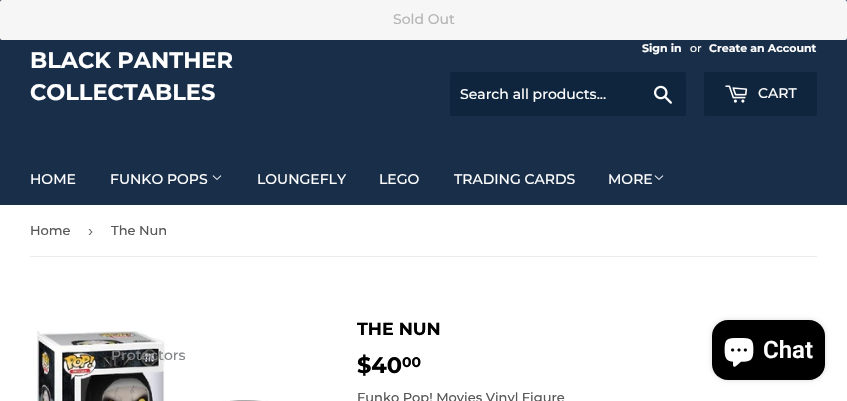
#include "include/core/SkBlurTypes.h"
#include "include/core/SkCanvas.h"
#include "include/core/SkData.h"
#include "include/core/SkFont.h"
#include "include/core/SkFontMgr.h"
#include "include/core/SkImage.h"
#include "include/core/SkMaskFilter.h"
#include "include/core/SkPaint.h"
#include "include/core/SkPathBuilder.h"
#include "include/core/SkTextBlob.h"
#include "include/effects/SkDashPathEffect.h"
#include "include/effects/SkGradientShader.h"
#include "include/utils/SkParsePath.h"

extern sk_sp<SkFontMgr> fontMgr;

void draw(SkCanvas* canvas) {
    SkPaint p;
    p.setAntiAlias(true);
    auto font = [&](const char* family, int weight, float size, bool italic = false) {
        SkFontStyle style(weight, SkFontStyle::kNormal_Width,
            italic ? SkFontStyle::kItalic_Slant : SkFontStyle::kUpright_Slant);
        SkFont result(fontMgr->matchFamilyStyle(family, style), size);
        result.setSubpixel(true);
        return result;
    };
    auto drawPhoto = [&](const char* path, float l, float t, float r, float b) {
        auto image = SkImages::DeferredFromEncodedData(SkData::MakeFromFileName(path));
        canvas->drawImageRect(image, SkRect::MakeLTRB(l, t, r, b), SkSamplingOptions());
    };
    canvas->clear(0xFFFFFFFF);
    p.setColor(0xFF182E49);
    canvas->drawRect(SkRect::MakeLTRB(0, 0, 847, 205), p);
    p.setColor(0xFFF6F6F6);
    canvas->drawRoundRect(SkRect::MakeLTRB(1, 1, 846, 39), 1, 1, p);
    p.setStyle(SkPaint::kStroke_Style);
    p.setStrokeWidth(2);
    canvas->drawRoundRect(SkRect::MakeLTRB(1, 1, 846, 39), 1, 1, p);
    auto font1 = font("Montserrat", 500, 14);
    p.setStyle(SkPaint::kFill_Style);
    p.setColor(0xFFB6B6B6);
    canvas->drawString("Sold Out", 393, 24, font1, p);
    auto font2 = font("Montserrat", 700, 22.5f);
    p.setColor(0xFFFFFFFF);
    canvas->drawString("BLACK PANTHER", 30, 68, font2, p);
    canvas->drawString("COLLECTABLES", 30, 100, font2, p);
    auto font3 = font("Montserrat", 700, 11);
    canvas->drawString("Sign in", 642, 52, font3, p);
    auto font4 = font("Montserrat", 500, 11);
    canvas->drawString("or", 690, 52, font4, p);
    canvas->drawString("Create an Account", 709, 52, font3, p);
    p.setColor(0xFF0F243D);
    canvas->drawRoundRect(SkRect::MakeLTRB(450, 72, 686, 116), 2, 2, p);
    p.setColor(0xFFFFFFFF);
    canvas->drawString("Search all products...", 460, 99, font1, p);
    drawPhoto("media/1.png", 654, 85, 672, 104);
    p.setColor(0xFF0F243D);
    canvas->drawRoundRect(SkRect::MakeLTRB(704, 72, 817, 116), 2, 2, p);
    drawPhoto("media/2.png", 725, 85, 748, 103);
    p.setColor(0xFFFFFFFF);
    {
        const struct { const char* s; float x, y; } items[] = {
            {"CART", 758, 98},
            {"HOME", 30, 184},
            {"FUNKO POPS", 110, 184},
        };
        for (auto [s, x, y] : items) {
            canvas->drawString(s, x, y, font1, p);
        }
    }
    drawPhoto("media/3.png", 212, 175, 222, 180);
    drawPhoto("media/4.png", 37, 331, 268, 401);
    p.setColor(0xFF858789);
    canvas->drawString("Protectors", 111, 360, font1, p);
    p.setColor(0xFFFFFFFF);
    {
        const struct { const char* s; float x, y; } items[] = {
            {"LOUNGEFLY", 257, 184},
            {"LEGO", 379, 184},
            {"TRADING CARDS", 454, 184},
            {"MORE", 608, 184},
        };
        for (auto [s, x, y] : items) {
            canvas->drawString(s, x, y, font1, p);
        }
    }
    drawPhoto("media/3.png", 654, 175, 664, 180);
    p.setColor(0xFFECECEC);
    canvas->drawRect(SkRect::MakeLTRB(30, 256, 817, 257), p);
    auto font5 = font("Montserrat", 500, 13);
    p.setColor(0xFF585858);
    canvas->drawString("Home", 30, 235, font5, p);
    auto font6 = font("Liberation Sans", 400, 15);
    p.setColor(0xFF767676);
    canvas->drawString("›", 88, 236, font6, p);
    p.setColor(0xFF585858);
    canvas->drawString("The Nun", 111, 235, font5, p);
    auto font7 = font("Montserrat", 700, 17.5f);
    p.setColor(0xFF000000);
    canvas->drawString("THE NUN", 357, 335, font7, p);
    canvas->drawString("$40", 357, 373, font2, p);
    auto font8 = font("Montserrat", 700, 14);
    canvas->drawString("00", 402, 367, font8, p);
    p.setColor(0xFF585858);
    canvas->drawString("Funko Pop! Movies Vinyl Figure", 357, 402, font5, p);
    p.setColor(0x26000000);
    p.setMaskFilter(SkMaskFilter::MakeBlur(kNormal_SkBlurStyle, 2.5f));
    canvas->drawRoundRect(SkRect::MakeLTRB(712, 320, 825, 380), 16, 16, p);
    p.setMaskFilter(nullptr);
    p.setColor(0xFF000000);
    canvas->drawRoundRect(SkRect::MakeLTRB(712, 320, 825, 380), 16, 16, p);
    drawPhoto("media/5.png", 724, 338, 754, 367);
    auto font9 = font("Roboto", 600, 24);
    p.setColor(0xFFFFFFFF);
    canvas->drawString("Chat", 763, 358, font9, p);
}
